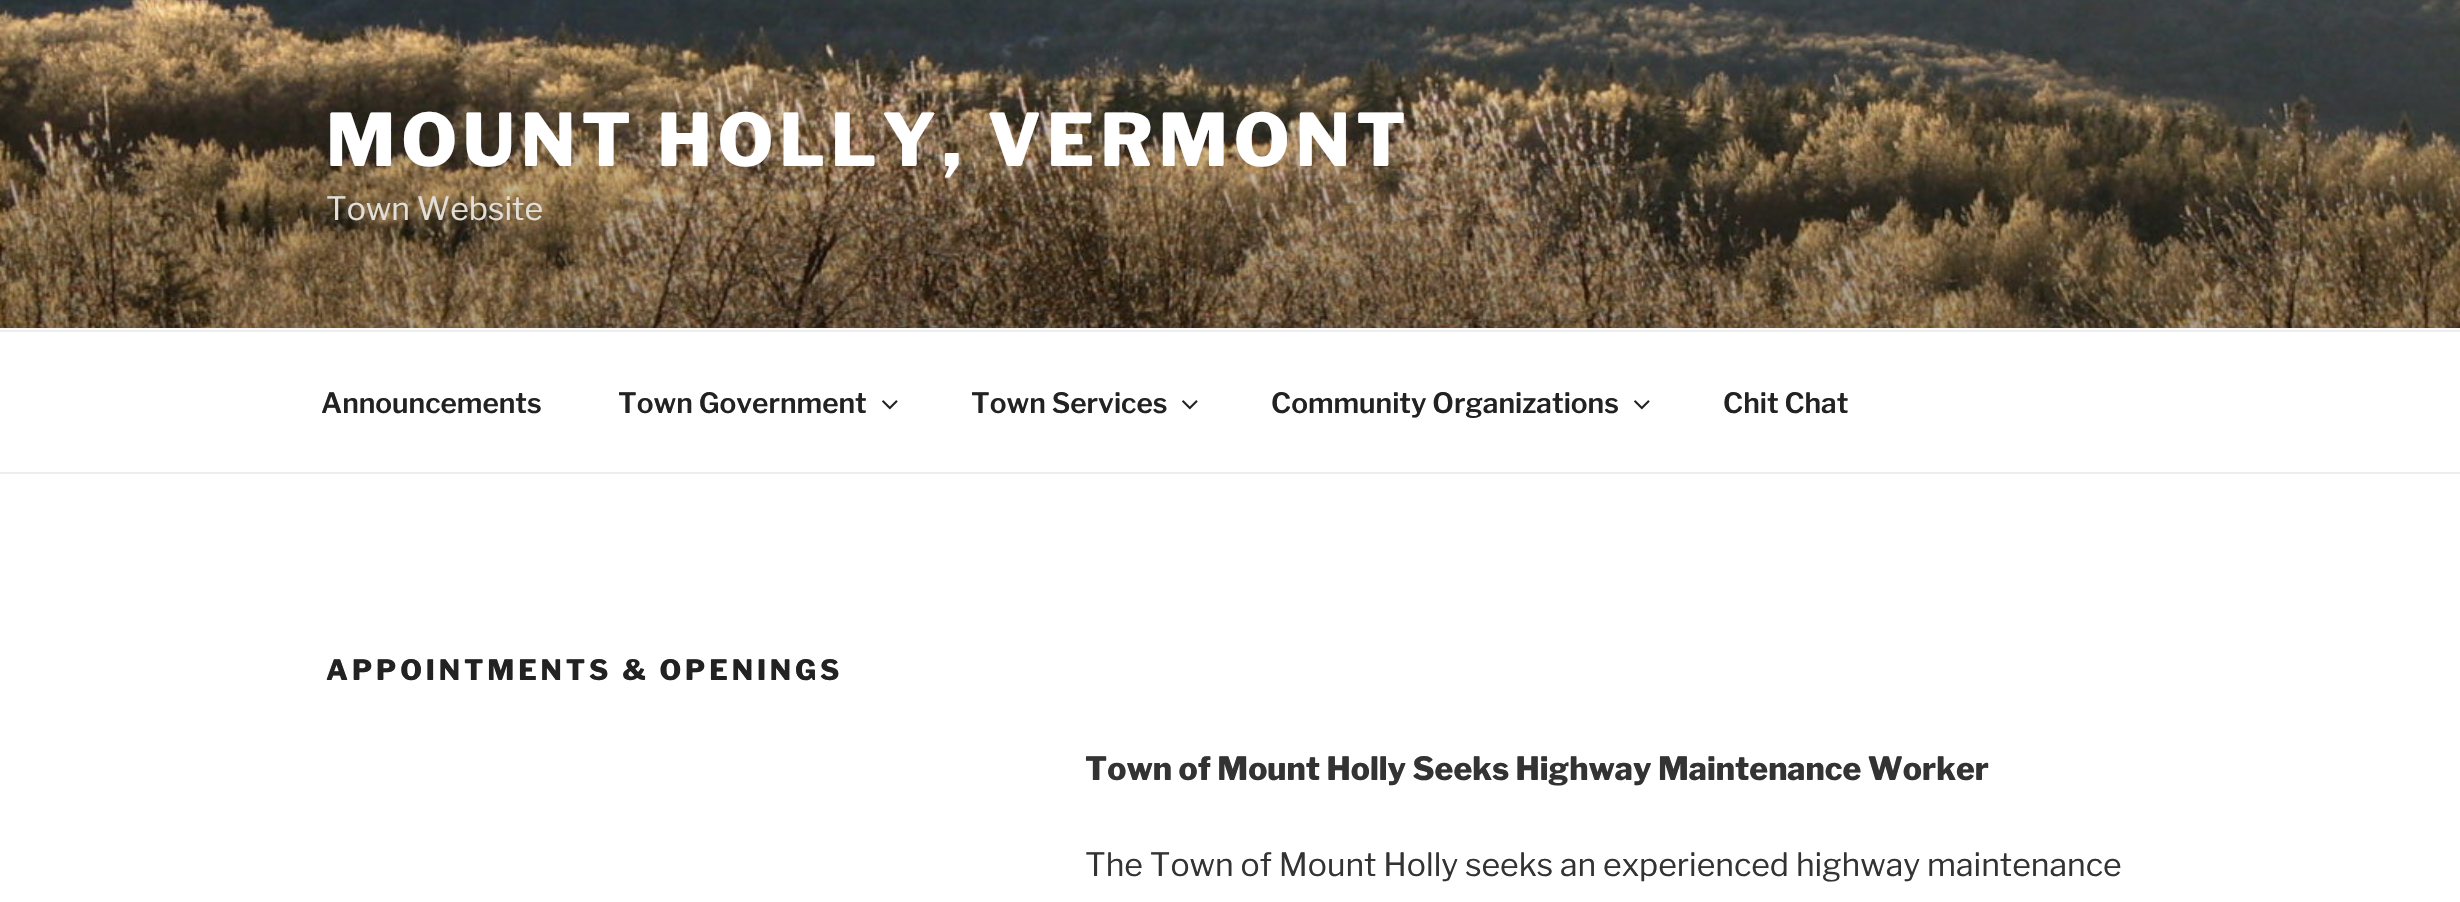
#include "include/core/SkBlurTypes.h"
#include "include/core/SkCanvas.h"
#include "include/core/SkData.h"
#include "include/core/SkFont.h"
#include "include/core/SkFontMgr.h"
#include "include/core/SkImage.h"
#include "include/core/SkMaskFilter.h"
#include "include/core/SkPaint.h"
#include "include/core/SkPathBuilder.h"
#include "include/core/SkTextBlob.h"
#include "include/effects/SkDashPathEffect.h"
#include "include/effects/SkGradientShader.h"
#include "include/utils/SkParsePath.h"

extern sk_sp<SkFontMgr> fontMgr;

void draw(SkCanvas* canvas) {
    SkPaint p;
    p.setAntiAlias(true);
    auto font = [&](const char* family, int weight, float size, bool italic = false) {
        SkFontStyle style(weight, SkFontStyle::kNormal_Width,
            italic ? SkFontStyle::kItalic_Slant : SkFontStyle::kUpright_Slant);
        SkFont result(fontMgr->matchFamilyStyle(family, style), size);
        result.setSubpixel(true);
        return result;
    };
    auto drawTracked = [&](const char* s, float x, float y, const SkFont& font, const SkPaint& ink, float letter, float word) {
        std::vector<SkGlyphID> glyphs(font.countText(s, strlen(s), SkTextEncoding::kUTF8));
        std::vector<float> xs(glyphs.size());
        font.textToGlyphs(s, strlen(s), SkTextEncoding::kUTF8, glyphs);
        font.getXPos(glyphs, xs, x);
        float extra = 0;
        for (size_t i = 0; i < glyphs.size(); i++) {
            xs[i] += extra;
            extra += letter + word * (glyphs[i] == font.unicharToGlyph(' '));
        }
        canvas->drawTextBlob(SkTextBlob::MakeFromPosHGlyphs(glyphs, xs, y, font), 0, 0, ink);
    };
    auto drawPhoto = [&](const char* path, float l, float t, float r, float b) {
        auto image = SkImages::DeferredFromEncodedData(SkData::MakeFromFileName(path));
        canvas->drawImageRect(image, SkRect::MakeLTRB(l, t, r, b), SkSamplingOptions());
    };
    canvas->clear(0xFFFFFFFF);
    p.setColor(0xFFFAFAFA);
    canvas->drawRect(SkRect::MakeLTRB(0, 328, 2460, 330), p);
    drawPhoto("media/1.png", 0, 0, 2460, 328);
    auto font1 = font("Libre Franklin", 800, 72);
    p.setColor(0xFFFFFFFF);
    drawTracked("MOUNT HOLLY, VERMONT", 326, 166, font1, p, 5.75f, 0);
    auto font2 = font("Libre Franklin", 400, 32);
    p.setColor(0xFFE2DED8);
    canvas->drawString("Town Website", 326, 220, font2, p);
    p.setColor(0xFFEEEEEE);
    canvas->drawRect(SkRect::MakeLTRB(0, 330, 2460, 332), p);
    canvas->drawRect(SkRect::MakeLTRB(0, 472, 2460, 474), p);
    auto font3 = font("Libre Franklin", 600, 28);
    p.setColor(0xFF222222);
    canvas->drawString("Announcements", 321, 413, font3, p);
    canvas->drawString("Town Government", 618, 413, font3, p);
    drawPhoto("media/2.png", 882, 400, 898, 410);
    canvas->drawString("Town Services", 971, 413, font3, p);
    drawPhoto("media/2.png", 1182, 400, 1198, 410);
    canvas->drawString("Community Organizations", 1271, 413, font3, p);
    drawPhoto("media/2.png", 1634, 400, 1650, 410);
    canvas->drawString("Chit Chat", 1723, 413, font3, p);
    auto font4 = font("Libre Franklin", 800, 28);
    drawTracked("APPOINTMENTS & OPENINGS", 326, 680, font4, p, 3.9f, 0);
    auto font5 = font("Libre Franklin", 800, 32);
    p.setColor(0xFF333333);
    canvas->drawString("Town of Mount Holly Seeks Highway Maintenance Worker", 1085, 780, font5, p);
    canvas->drawString("The Town of Mount Holly seeks an experienced highway maintenance", 1085, 876, font2, p);
}
